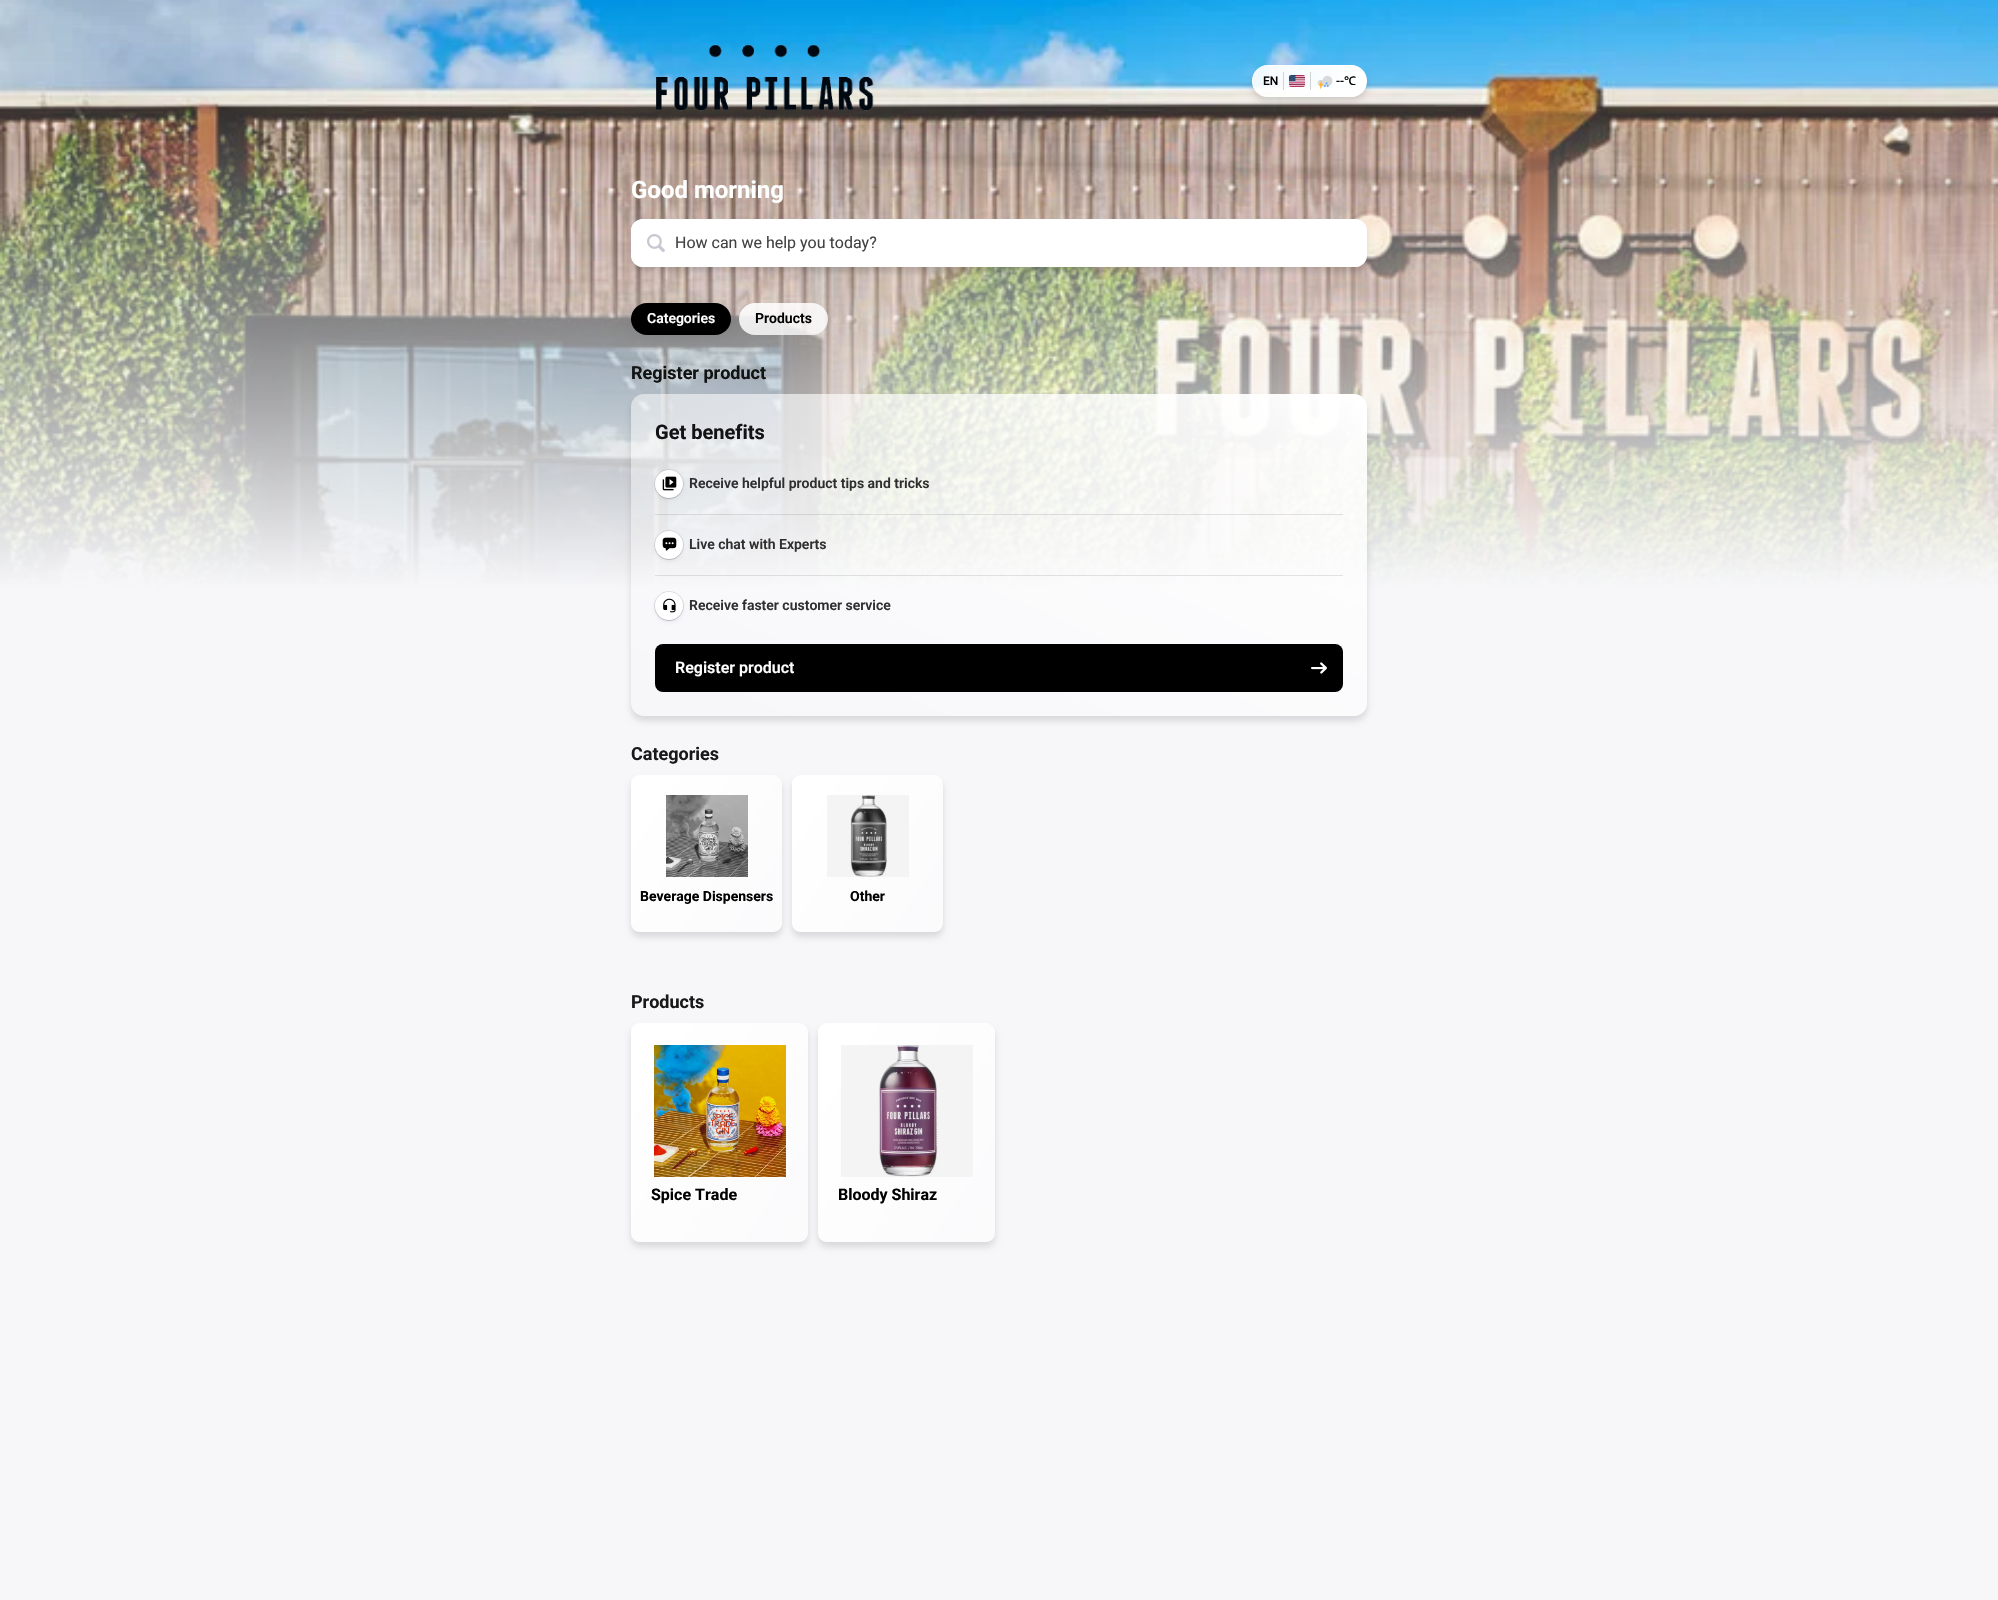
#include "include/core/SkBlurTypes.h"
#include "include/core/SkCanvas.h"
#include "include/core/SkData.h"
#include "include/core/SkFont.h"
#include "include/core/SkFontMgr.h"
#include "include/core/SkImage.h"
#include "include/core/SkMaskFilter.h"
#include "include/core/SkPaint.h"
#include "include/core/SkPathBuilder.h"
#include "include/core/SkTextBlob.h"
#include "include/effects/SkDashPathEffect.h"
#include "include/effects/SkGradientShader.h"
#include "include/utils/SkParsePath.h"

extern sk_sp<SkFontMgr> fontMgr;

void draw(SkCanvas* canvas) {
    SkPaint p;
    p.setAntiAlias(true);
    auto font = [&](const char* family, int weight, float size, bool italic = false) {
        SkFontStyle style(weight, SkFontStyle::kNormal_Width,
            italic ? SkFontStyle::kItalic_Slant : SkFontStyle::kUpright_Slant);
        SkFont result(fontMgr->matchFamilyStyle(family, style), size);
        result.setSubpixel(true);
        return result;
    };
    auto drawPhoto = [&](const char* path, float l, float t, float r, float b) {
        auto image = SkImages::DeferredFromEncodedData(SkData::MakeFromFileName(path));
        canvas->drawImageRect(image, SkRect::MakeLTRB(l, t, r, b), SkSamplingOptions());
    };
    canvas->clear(0xFFF7F7FA);
    drawPhoto("media/1.png", 0, 0, 1998, 590);
    drawPhoto("media/2.png", 656, 45, 874, 111);
    canvas->save();
    canvas->clipPath(SkPathBuilder(SkPathFillType::kEvenOdd).moveTo(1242, 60).lineTo(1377, 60).lineTo(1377, 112).lineTo(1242, 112).close().moveTo(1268, 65).lineTo(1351, 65).cubicTo(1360, 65, 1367, 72, 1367, 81).cubicTo(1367, 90, 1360, 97, 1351, 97).lineTo(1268, 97).cubicTo(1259, 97, 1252, 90, 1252, 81).cubicTo(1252, 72, 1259, 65, 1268, 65).close().detach(), true);
    p.setColor(0x1F000000);
    p.setMaskFilter(SkMaskFilter::MakeBlur(kNormal_SkBlurStyle, 3));
    canvas->drawRoundRect(SkRect::MakeLTRB(1252, 70, 1367, 102), 16, 16, p);
    p.setMaskFilter(nullptr);
    canvas->restore();
    canvas->save();
    canvas->clipPath(SkPathBuilder().moveTo(1268, 65).lineTo(1351, 65).cubicTo(1360, 65, 1367, 72, 1367, 81).cubicTo(1367, 90, 1360, 97, 1351, 97).lineTo(1268, 97).cubicTo(1259, 97, 1252, 90, 1252, 81).cubicTo(1252, 72, 1259, 65, 1268, 65).close().detach(), true);
    {
        const SkColor colors[] = {0xE6FFFFFF, 0xFFFFFFFF};
        const float stops[] = {0, 1};
        const SkPoint ends[] = {{1140, 81}, {1253, 81}};
        p.setShader(SkGradientShader::MakeLinear(ends, colors, stops, 2, SkTileMode::kClamp));
        p.setAlpha(255);
    }
    canvas->drawRect(SkRect::MakeLTRB(1252, 75, 1253, 87), p);
    {
        const SkColor colors[] = {0xE6FFFFFF, 0xFFFFFFFF};
        const float stops[] = {0, 1};
        const SkPoint ends[] = {{1253, 81}, {1366, 81}};
        p.setShader(SkGradientShader::MakeLinear(ends, colors, stops, 2, SkTileMode::kClamp));
        p.setAlpha(255);
    }
    canvas->drawRect(SkRect::MakeLTRB(1253, 65, 1366, 97), p);
    {
        const SkColor colors[] = {0xE6FFFFFF, 0xFFFFFFFF};
        const float stops[] = {0, 1};
        const SkPoint ends[] = {{1366, 81}, {1479, 81}};
        p.setShader(SkGradientShader::MakeLinear(ends, colors, stops, 2, SkTileMode::kClamp));
        p.setAlpha(255);
    }
    canvas->drawRect(SkRect::MakeLTRB(1366, 75, 1367, 87), p);
    canvas->restore();
    p.setStyle(SkPaint::kStroke_Style);
    p.setStrokeWidth(1);
    p.setShader(nullptr);
    p.setColor(0xA6FFFFFF);
    canvas->drawRoundRect(SkRect::MakeLTRB(1252.5f, 65.5f, 1366.5f, 96.5f), 15.5f, 15.5f, p);
    auto font1 = font("Roboto", 500, 12);
    p.setStyle(SkPaint::kFill_Style);
    p.setColor(0xFF000000);
    canvas->drawString("EN", 1263, 85, font1, p);
    p.setColor(0xFFD3D3D3);
    canvas->drawRect(SkRect::MakeLTRB(1283, 72, 1284, 90), p);
    drawPhoto("media/3.png", 1289, 75, 1305, 87);
    canvas->drawRect(SkRect::MakeLTRB(1310, 72, 1311, 90), p);
    drawPhoto("media/4.png", 1317, 75, 1333, 89);
    p.setColor(0xFF000000);
    canvas->drawString("--", 1336, 85, font1, p);
    auto font2 = font("Noto Sans", 500, 12);
    canvas->drawString("℃", 1344, 85, font2, p);
    auto font3 = font("Roboto", 700, 24);
    p.setColor(0xFFFFFFFF);
    canvas->drawString("Good morning", 631, 198, font3, p);
    p.setColor(0x1F000000);
    p.setMaskFilter(SkMaskFilter::MakeBlur(kNormal_SkBlurStyle, 3));
    canvas->drawRoundRect(SkRect::MakeLTRB(631, 224, 1367, 272), 12, 12, p);
    p.setMaskFilter(nullptr);
    p.setColor(0xFFFFFFFF);
    canvas->drawRoundRect(SkRect::MakeLTRB(631, 219, 1367, 267), 12, 12, p);
    {
        const SkColor colors[] = {0xE6FFFFFF, 0xBDFFFFFF};
        const float stops[] = {0, 1};
        const SkPoint ends[] = {{996, 195}, {1002, 291}};
        p.setShader(SkGradientShader::MakeLinear(ends, colors, stops, 2, SkTileMode::kClamp));
        p.setAlpha(255);
    }
    canvas->drawRoundRect(SkRect::MakeLTRB(631, 219, 1367, 267), 12, 12, p);
    drawPhoto("media/5.png", 647, 234, 665, 252);
    auto font4 = font("Roboto", 400, 16);
    p.setShader(nullptr);
    p.setColor(0xFF424242);
    canvas->drawString("How can we help you today?", 675, 248, font4, p);
    p.setColor(0x14000000);
    p.setMaskFilter(SkMaskFilter::MakeBlur(kNormal_SkBlurStyle, 10));
    canvas->drawRoundRect(SkRect::MakeLTRB(631, 305, 731, 337), 16, 16, p);
    p.setMaskFilter(nullptr);
    p.setColor(0xFF000000);
    canvas->drawRoundRect(SkRect::MakeLTRB(631, 303, 731, 335), 16, 16, p);
    auto font5 = font("Roboto", 600, 14);
    p.setColor(0xFFFFFFFF);
    canvas->drawString("Categories", 647, 323, font5, p);
    {
        const SkColor colors[] = {0xE6FFFFFF, 0xBDFFFFFF};
        const float stops[] = {0, 1};
        const SkPoint ends[] = {{773, 291}, {794, 347}};
        p.setShader(SkGradientShader::MakeLinear(ends, colors, stops, 2, SkTileMode::kClamp));
        p.setAlpha(255);
    }
    canvas->drawRoundRect(SkRect::MakeLTRB(739, 303, 828, 335), 16, 16, p);
    p.setShader(nullptr);
    p.setColor(0xFF000000);
    canvas->drawString("Products", 755, 323, font5, p);
    auto font6 = font("Roboto", 700, 18);
    p.setColor(0xFF121313);
    canvas->drawString("Register product", 631, 379, font6, p);
    canvas->save();
    canvas->clipPath(SkPathBuilder(SkPathFillType::kEvenOdd).moveTo(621, 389).lineTo(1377, 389).lineTo(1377, 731).lineTo(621, 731).close().moveTo(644, 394).lineTo(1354, 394).cubicTo(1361, 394, 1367, 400, 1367, 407).lineTo(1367, 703).cubicTo(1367, 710, 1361, 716, 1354, 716).lineTo(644, 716).cubicTo(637, 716, 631, 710, 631, 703).lineTo(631, 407).cubicTo(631, 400, 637, 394, 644, 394).close().detach(), true);
    p.setColor(0x1F000000);
    p.setMaskFilter(SkMaskFilter::MakeBlur(kNormal_SkBlurStyle, 3));
    canvas->drawRoundRect(SkRect::MakeLTRB(631, 399, 1367, 721), 13, 13, p);
    p.setMaskFilter(nullptr);
    canvas->restore();
    {
        const SkColor colors[] = {0x00FFFFFF, 0xFFFFFFFF};
        const float stops[] = {0, 1};
        const SkPoint ends[] = {{881, 825}, {1117, 285}};
        p.setShader(SkGradientShader::MakeLinear(ends, colors, stops, 2, SkTileMode::kClamp));
        p.setAlpha(255);
    }
    canvas->drawRoundRect(SkRect::MakeLTRB(631, 394, 1367, 716), 13, 13, p);
    auto font7 = font("Roboto", 700, 20);
    p.setShader(nullptr);
    p.setColor(0xFF121313);
    canvas->drawString("Get benefits", 655, 439, font7, p);
    p.setColor(0x143C4257);
    p.setMaskFilter(SkMaskFilter::MakeBlur(kNormal_SkBlurStyle, 2.5f));
    canvas->drawRoundRect(SkRect::MakeLTRB(655, 472, 683, 500), 14, 14, p);
    p.setMaskFilter(nullptr);
    p.setStyle(SkPaint::kStroke_Style);
    p.setColor(0x293C4257);
    canvas->drawCircle(669, 484, 14.5f, p);
    p.setStyle(SkPaint::kFill_Style);
    p.setColor(0x1F000000);
    p.setMaskFilter(SkMaskFilter::MakeBlur(kNormal_SkBlurStyle, 0.5f));
    canvas->drawRoundRect(SkRect::MakeLTRB(655, 471, 683, 499), 14, 14, p);
    p.setMaskFilter(nullptr);
    p.setColor(0xFFFFFFFF);
    canvas->drawCircle(669, 484, 14, p);
    drawPhoto("media/6.png", 662, 476, 677, 491);
    p.setColor(0xFF2F2F2F);
    canvas->drawString("Receive helpful product tips and tricks", 689, 488, font5, p);
    p.setColor(0x1A000000);
    canvas->drawRect(SkRect::MakeLTRB(655, 514, 1343, 515), p);
    p.setColor(0x143C4257);
    p.setMaskFilter(SkMaskFilter::MakeBlur(kNormal_SkBlurStyle, 2.5f));
    canvas->drawRoundRect(SkRect::MakeLTRB(655, 533, 683, 561), 14, 14, p);
    p.setMaskFilter(nullptr);
    p.setStyle(SkPaint::kStroke_Style);
    p.setColor(0x293C4257);
    canvas->drawCircle(669, 545, 14.5f, p);
    p.setStyle(SkPaint::kFill_Style);
    p.setColor(0x1F000000);
    p.setMaskFilter(SkMaskFilter::MakeBlur(kNormal_SkBlurStyle, 0.5f));
    canvas->drawRoundRect(SkRect::MakeLTRB(655, 532, 683, 560), 14, 14, p);
    p.setMaskFilter(nullptr);
    p.setColor(0xFFFFFFFF);
    canvas->drawCircle(669, 545, 14, p);
    drawPhoto("media/7.png", 662, 537, 677, 551);
    p.setColor(0xFF2F2F2F);
    canvas->drawString("Live chat with Experts", 689, 549, font5, p);
    p.setColor(0x1A000000);
    canvas->drawRect(SkRect::MakeLTRB(655, 575, 1343, 576), p);
    p.setColor(0x143C4257);
    p.setMaskFilter(SkMaskFilter::MakeBlur(kNormal_SkBlurStyle, 2.5f));
    canvas->drawRoundRect(SkRect::MakeLTRB(655, 594, 683, 622), 14, 14, p);
    p.setMaskFilter(nullptr);
    p.setStyle(SkPaint::kStroke_Style);
    p.setColor(0x293C4257);
    canvas->drawCircle(669, 606, 14.5f, p);
    p.setStyle(SkPaint::kFill_Style);
    p.setColor(0x1F000000);
    p.setMaskFilter(SkMaskFilter::MakeBlur(kNormal_SkBlurStyle, 0.5f));
    canvas->drawRoundRect(SkRect::MakeLTRB(655, 593, 683, 621), 14, 14, p);
    p.setMaskFilter(nullptr);
    p.setColor(0xFFFFFFFF);
    canvas->drawCircle(669, 606, 14, p);
    drawPhoto("media/8.png", 663, 598, 676, 613);
    p.setColor(0xFF2F2F2F);
    canvas->drawString("Receive faster customer service", 689, 610, font5, p);
    p.setColor(0xFF000000);
    canvas->drawRoundRect(SkRect::MakeLTRB(655, 644, 1343, 692), 8, 8, p);
    auto font8 = font("Roboto", 600, 16);
    p.setColor(0xFFFFFFFF);
    canvas->drawString("Register product", 675, 673, font8, p);
    drawPhoto("media/9.png", 1311, 662, 1327, 674);
    p.setColor(0xFF191919);
    canvas->drawString("Categories", 631, 760, font6, p);
    canvas->save();
    canvas->clipPath(SkPathBuilder(SkPathFillType::kEvenOdd).moveTo(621, 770).lineTo(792, 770).lineTo(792, 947).lineTo(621, 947).close().moveTo(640, 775).lineTo(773, 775).cubicTo(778, 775, 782, 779, 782, 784).lineTo(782, 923).cubicTo(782, 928, 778, 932, 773, 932).lineTo(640, 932).cubicTo(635, 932, 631, 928, 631, 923).lineTo(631, 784).cubicTo(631, 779, 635, 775, 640, 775).close().detach(), true);
    p.setColor(0x1F000000);
    p.setMaskFilter(SkMaskFilter::MakeBlur(kNormal_SkBlurStyle, 3));
    canvas->drawRoundRect(SkRect::MakeLTRB(631, 780, 782, 937), 9, 9, p);
    p.setMaskFilter(nullptr);
    canvas->restore();
    {
        const SkColor colors[] = {0xFFFFFFFF, 0x70FFFFFF};
        const float stops[] = {0, 1};
        const SkPoint ends[] = {{618, 796}, {795, 911}};
        p.setShader(SkGradientShader::MakeLinear(ends, colors, stops, 2, SkTileMode::kClamp));
        p.setAlpha(255);
    }
    canvas->drawRoundRect(SkRect::MakeLTRB(631, 775, 782, 932), 9, 9, p);
    drawPhoto("media/10.png", 666, 795, 748, 877);
    auto font9 = font("Roboto", 700, 14);
    p.setShader(nullptr);
    p.setColor(0xFF000000);
    canvas->drawString("Beverage Dispensers", 640, 901, font9, p);
    canvas->save();
    canvas->clipPath(SkPathBuilder(SkPathFillType::kEvenOdd).moveTo(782, 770).lineTo(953, 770).lineTo(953, 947).lineTo(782, 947).close().moveTo(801, 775).lineTo(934, 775).cubicTo(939, 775, 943, 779, 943, 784).lineTo(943, 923).cubicTo(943, 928, 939, 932, 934, 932).lineTo(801, 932).cubicTo(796, 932, 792, 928, 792, 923).lineTo(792, 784).cubicTo(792, 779, 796, 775, 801, 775).close().detach(), true);
    p.setColor(0x1F000000);
    p.setMaskFilter(SkMaskFilter::MakeBlur(kNormal_SkBlurStyle, 3));
    canvas->drawRoundRect(SkRect::MakeLTRB(792, 780, 943, 937), 9, 9, p);
    p.setMaskFilter(nullptr);
    canvas->restore();
    {
        const SkColor colors[] = {0xFFFFFFFF, 0x70FFFFFF};
        const float stops[] = {0, 1};
        const SkPoint ends[] = {{779, 796}, {956, 911}};
        p.setShader(SkGradientShader::MakeLinear(ends, colors, stops, 2, SkTileMode::kClamp));
        p.setAlpha(255);
    }
    canvas->drawRoundRect(SkRect::MakeLTRB(792, 775, 943, 932), 9, 9, p);
    drawPhoto("media/11.png", 827, 795, 909, 877);
    p.setShader(nullptr);
    p.setColor(0xFF000000);
    canvas->drawString("Other", 850, 901, font9, p);
    p.setColor(0xFF191919);
    canvas->drawString("Products", 631, 1008, font6, p);
    canvas->save();
    canvas->clipPath(SkPathBuilder(SkPathFillType::kEvenOdd).moveTo(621, 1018).lineTo(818, 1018).lineTo(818, 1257).lineTo(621, 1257).close().moveTo(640, 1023).lineTo(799, 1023).cubicTo(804, 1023, 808, 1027, 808, 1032).lineTo(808, 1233).cubicTo(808, 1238, 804, 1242, 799, 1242).lineTo(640, 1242).cubicTo(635, 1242, 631, 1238, 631, 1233).lineTo(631, 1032).cubicTo(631, 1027, 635, 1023, 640, 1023).close().detach(), true);
    p.setColor(0x1F000000);
    p.setMaskFilter(SkMaskFilter::MakeBlur(kNormal_SkBlurStyle, 3));
    canvas->drawRoundRect(SkRect::MakeLTRB(631, 1028, 808, 1247), 9, 9, p);
    p.setMaskFilter(nullptr);
    canvas->restore();
    {
        const SkColor colors[] = {0xFFFFFFFF, 0x70FFFFFF};
        const float stops[] = {0, 1};
        const SkPoint ends[] = {{607, 1060}, {832, 1205}};
        p.setShader(SkGradientShader::MakeLinear(ends, colors, stops, 2, SkTileMode::kClamp));
        p.setAlpha(255);
    }
    canvas->drawRoundRect(SkRect::MakeLTRB(631, 1023, 808, 1242), 9, 9, p);
    drawPhoto("media/12.png", 654, 1045, 786, 1177);
    auto font10 = font("Roboto", 700, 16);
    p.setShader(nullptr);
    p.setColor(0xFF000000);
    canvas->drawString("Spice Trade", 651, 1200, font10, p);
    canvas->save();
    canvas->clipPath(SkPathBuilder(SkPathFillType::kEvenOdd).moveTo(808, 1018).lineTo(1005, 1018).lineTo(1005, 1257).lineTo(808, 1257).close().moveTo(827, 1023).lineTo(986, 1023).cubicTo(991, 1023, 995, 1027, 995, 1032).lineTo(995, 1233).cubicTo(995, 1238, 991, 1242, 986, 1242).lineTo(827, 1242).cubicTo(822, 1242, 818, 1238, 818, 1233).lineTo(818, 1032).cubicTo(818, 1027, 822, 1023, 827, 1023).close().detach(), true);
    p.setColor(0x1F000000);
    p.setMaskFilter(SkMaskFilter::MakeBlur(kNormal_SkBlurStyle, 3));
    canvas->drawRoundRect(SkRect::MakeLTRB(818, 1028, 995, 1247), 9, 9, p);
    p.setMaskFilter(nullptr);
    canvas->restore();
    {
        const SkColor colors[] = {0xFFFFFFFF, 0x70FFFFFF};
        const float stops[] = {0, 1};
        const SkPoint ends[] = {{794, 1060}, {1019, 1205}};
        p.setShader(SkGradientShader::MakeLinear(ends, colors, stops, 2, SkTileMode::kClamp));
        p.setAlpha(255);
    }
    canvas->drawRoundRect(SkRect::MakeLTRB(818, 1023, 995, 1242), 9, 9, p);
    drawPhoto("media/13.png", 841, 1045, 973, 1177);
    p.setShader(nullptr);
    p.setColor(0xFF000000);
    canvas->drawString("Bloody Shiraz", 838, 1200, font10, p);
}
